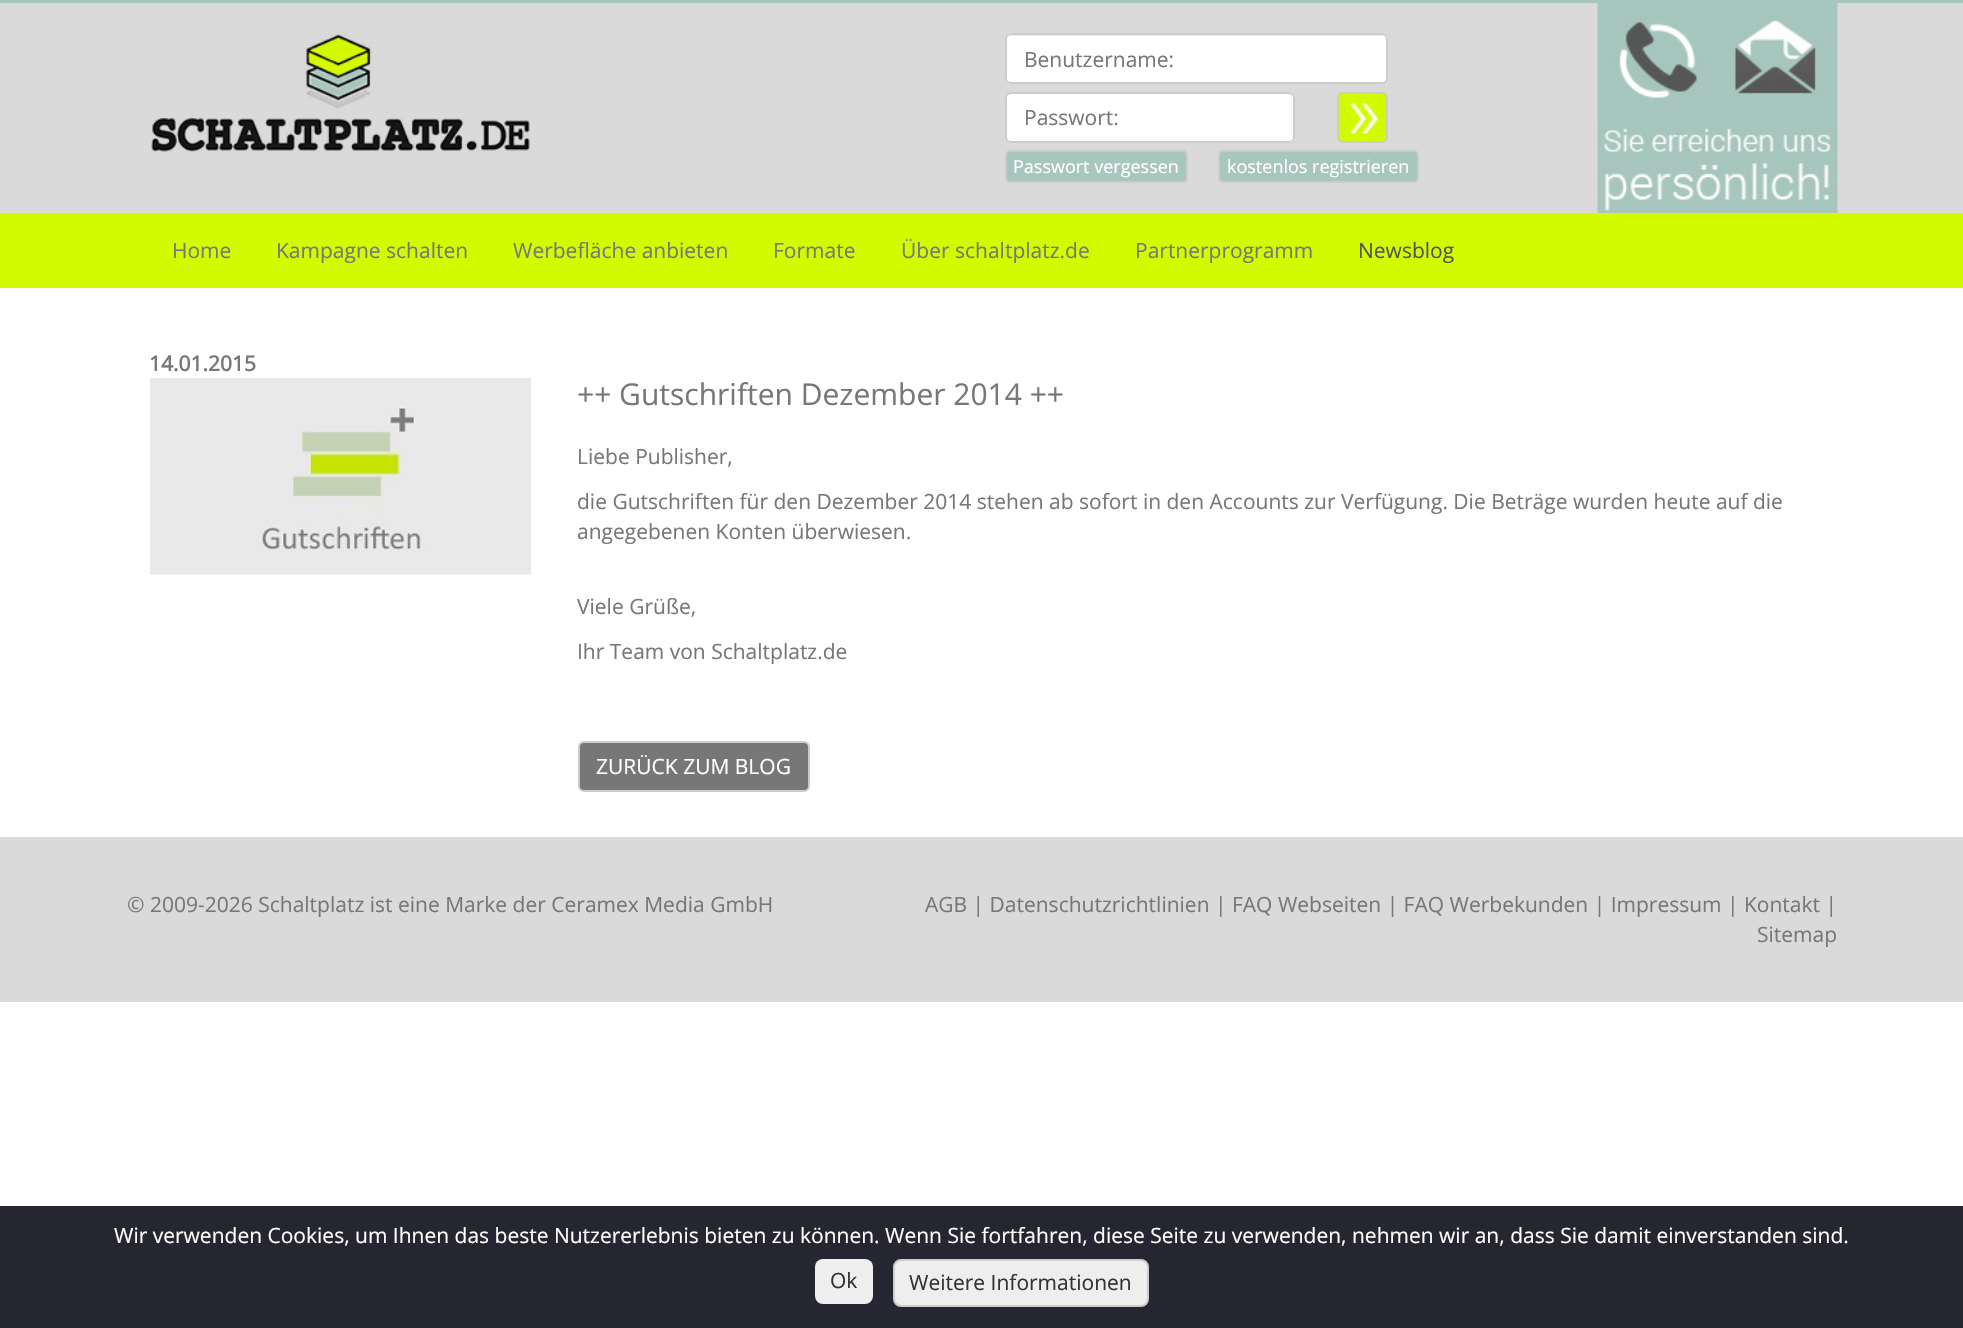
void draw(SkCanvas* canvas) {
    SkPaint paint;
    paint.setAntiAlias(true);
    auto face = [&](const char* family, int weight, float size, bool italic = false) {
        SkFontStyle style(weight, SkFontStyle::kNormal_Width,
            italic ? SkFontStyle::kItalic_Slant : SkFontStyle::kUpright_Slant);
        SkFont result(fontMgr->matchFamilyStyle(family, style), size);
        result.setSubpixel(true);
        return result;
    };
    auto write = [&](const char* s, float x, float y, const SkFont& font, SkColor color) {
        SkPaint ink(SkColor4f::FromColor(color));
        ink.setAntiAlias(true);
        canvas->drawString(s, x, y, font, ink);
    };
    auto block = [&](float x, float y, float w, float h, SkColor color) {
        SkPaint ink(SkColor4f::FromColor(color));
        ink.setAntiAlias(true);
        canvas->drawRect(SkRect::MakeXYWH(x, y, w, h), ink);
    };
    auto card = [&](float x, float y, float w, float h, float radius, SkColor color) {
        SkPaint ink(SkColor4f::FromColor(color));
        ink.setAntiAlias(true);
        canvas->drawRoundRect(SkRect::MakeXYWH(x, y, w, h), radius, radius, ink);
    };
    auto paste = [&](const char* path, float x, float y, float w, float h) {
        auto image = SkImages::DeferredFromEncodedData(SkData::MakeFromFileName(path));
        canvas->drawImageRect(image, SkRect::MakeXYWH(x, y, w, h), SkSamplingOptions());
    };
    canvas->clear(SK_ColorWHITE);
    block(0, 3, 1963, 210, SkColorSetRGB(218, 218, 218));
    block(0, 0, 1963, 3, SkColorSetRGB(167, 198, 190));
    paste("pic1.png", 151, 33, 379, 119);
    card(1005, 33, 383, 51, 6, SK_ColorWHITE);
    paint.setColor(SkColorSetRGB(236, 236, 236));
    canvas->drawPath(SkPathBuilder().moveTo(1011, 36).lineTo(1382, 36).cubicTo(1384, 36, 1386, 38, 1386, 40).cubicTo(1386, 37, 1384, 35, 1381, 35).lineTo(1012, 35).cubicTo(1010, 35, 1009, 36, 1008, 37).close().detach(), paint);
    paint.setStyle(SkPaint::kStroke_Style);
    paint.setStrokeWidth(2);
    paint.setColor(SkColorSetRGB(204, 204, 204));
    canvas->drawRoundRect(SkRect::MakeXYWH(1006, 34, 381, 49), 5, 5, paint);
    auto kFont1 = face("Open Sans", 400, 21);
    write("Benutzername:", 1024, 67, kFont1, SkColorSetRGB(119, 119, 119));
    card(1005, 92, 290, 51, 6, SK_ColorWHITE);
    paint.setStyle(SkPaint::kFill_Style);
    paint.setColor(SkColorSetRGB(236, 236, 236));
    canvas->drawPath(SkPathBuilder().moveTo(1011, 94).lineTo(1288, 94).cubicTo(1291, 94, 1293, 97, 1293, 99).lineTo(1293, 98).cubicTo(1293, 95, 1291, 93, 1288, 93).lineTo(1012, 93).cubicTo(1010, 93, 1008, 94, 1007, 96).cubicTo(1008, 95, 1010, 94, 1011, 94).close().detach(), paint);
    paint.setStyle(SkPaint::kStroke_Style);
    paint.setColor(SkColorSetRGB(204, 204, 204));
    canvas->drawRoundRect(SkRect::MakeXYWH(1006, 93, 288, 49), 5, 5, paint);
    write("Passwort:", 1024, 125, kFont1, SkColorSetRGB(119, 119, 119));
    paste("pic2.png", 1336, 91, 52, 52);
    canvas->drawRoundRect(SkRect::MakeXYWH(1338, 93, 49, 49), 5, 5, paint);
    paint.setStyle(SkPaint::kFill_Style);
    paint.setColor(SkColorSetRGB(167, 198, 190));
    canvas->drawRoundRect(SkRect::MakeXYWH(1006, 151, 181, 31), 4, 4, paint);
    paint.setStyle(SkPaint::kStroke_Style);
    paint.setColor(SkColorSetRGB(204, 204, 204));
    canvas->drawRoundRect(SkRect::MakeXYWH(1006, 151, 181, 31), 4, 4, paint);
    auto kFont2 = face("Open Sans", 400, 18);
    write("Passwort vergessen", 1013, 173, kFont2, SK_ColorWHITE);
    paint.setStyle(SkPaint::kFill_Style);
    paint.setColor(SkColorSetRGB(167, 198, 190));
    canvas->drawRoundRect(SkRect::MakeXYWH(1219, 151, 199, 31), 4, 4, paint);
    paint.setStyle(SkPaint::kStroke_Style);
    paint.setColor(SkColorSetRGB(204, 204, 204));
    canvas->drawRoundRect(SkRect::MakeXYWH(1219, 151, 199, 31), 4, 4, paint);
    write("kostenlos registrieren", 1227, 173, kFont2, SK_ColorWHITE);
    paste("pic3.png", 1597, 3, 241, 105);
    paste("pic4.png", 1597, 108, 241, 105);
    block(0, 213, 1963, 75, SkColorSetRGB(210, 251, 0));
    write("Home", 172, 258, kFont1, SkColorSetRGB(119, 119, 119));
    write("Kampagne schalten", 276, 258, kFont1, SkColorSetRGB(119, 119, 119));
    write("Werbefläche anbieten", 513, 258, kFont1, SkColorSetRGB(119, 119, 119));
    write("Formate", 773, 258, kFont1, SkColorSetRGB(119, 119, 119));
    write("Über schaltplatz.de", 901, 258, kFont1, SkColorSetRGB(119, 119, 119));
    write("Partnerprogramm", 1135, 258, kFont1, SkColorSetRGB(119, 119, 119));
    write("Newsblog", 1358, 258, kFont1, SkColorSetRGB(85, 85, 85));
    auto kFont3 = face("Open Sans", 700, 21);
    write("14.01.2015", 149, 371, kFont3, SkColorSetRGB(119, 119, 119));
    paste("pic5.png", 150, 378, 381, 197);
    auto kFont4 = face("Open Sans", 400, 30);
    write("++ Gutschriften Dezember 2014 ++", 577, 405, kFont4, SkColorSetRGB(119, 119, 119));
    write("Liebe Publisher,", 577, 464, kFont1, SkColorSetRGB(119, 119, 119));
    write("die Gutschriften für den Dezember 2014 stehen ab sofort in den Accounts zur Verfügung. Die Beträge wurden heute auf die", 577, 509, kFont1, SkColorSetRGB(119, 119, 119));
    write("angegebenen Konten überwiesen.", 577, 539, kFont1, SkColorSetRGB(119, 119, 119));
    write("Viele Grüße,", 577, 614, kFont1, SkColorSetRGB(119, 119, 119));
    write("Ihr Team von Schaltplatz.de", 577, 659, kFont1, SkColorSetRGB(119, 119, 119));
    paint.setStyle(SkPaint::kFill_Style);
    paint.setColor(SkColorSetRGB(119, 119, 119));
    canvas->drawRoundRect(SkRect::MakeXYWH(579, 742, 230, 49), 5, 5, paint);
    paint.setStyle(SkPaint::kStroke_Style);
    paint.setColor(SkColorSetRGB(204, 204, 204));
    canvas->drawRoundRect(SkRect::MakeXYWH(579, 742, 230, 49), 5, 5, paint);
    write("ZURÜCK ZUM BLOG", 596, 774, kFont1, SK_ColorWHITE);
    block(0, 837, 1963, 165, SkColorSetRGB(218, 218, 218));
    write("© 2009-2026 Schaltplatz ist eine Marke der Ceramex Media GmbH", 127, 912, kFont1, SkColorSetRGB(119, 119, 119));
    write("AGB | Datenschutzrichtlinien | FAQ Webseiten | FAQ Werbekunden | Impressum | Kontakt |", 925, 912, kFont1, SkColorSetRGB(119, 119, 119));
    write("Sitemap", 1757, 942, kFont1, SkColorSetRGB(119, 119, 119));
    block(0, 1206, 1963, 122, SkColorSetRGB(37, 38, 49));
    write("Wir verwenden Cookies, um Ihnen das beste Nutzererlebnis bieten zu können. Wenn Sie fortfahren, diese Seite zu verwenden, nehmen wir an, dass Sie damit einverstanden sind.", 114, 1243, kFont1, SK_ColorWHITE);
    card(815, 1259, 58, 45, 8, SkColorSetRGB(238, 238, 238));
    write("Ok", 830, 1288, kFont1, SkColorSetRGB(51, 51, 51));
    paint.setStyle(SkPaint::kFill_Style);
    paint.setColor(SkColorSetRGB(238, 238, 238));
    canvas->drawRoundRect(SkRect::MakeXYWH(894, 1260, 254, 46), 7, 7, paint);
    paint.setStyle(SkPaint::kStroke_Style);
    paint.setColor(SkColorSetRGB(204, 204, 204));
    canvas->drawRoundRect(SkRect::MakeXYWH(894, 1260, 254, 46), 7, 7, paint);
    write("Weitere Informationen", 909, 1290, kFont1, SkColorSetRGB(51, 51, 51));
}
